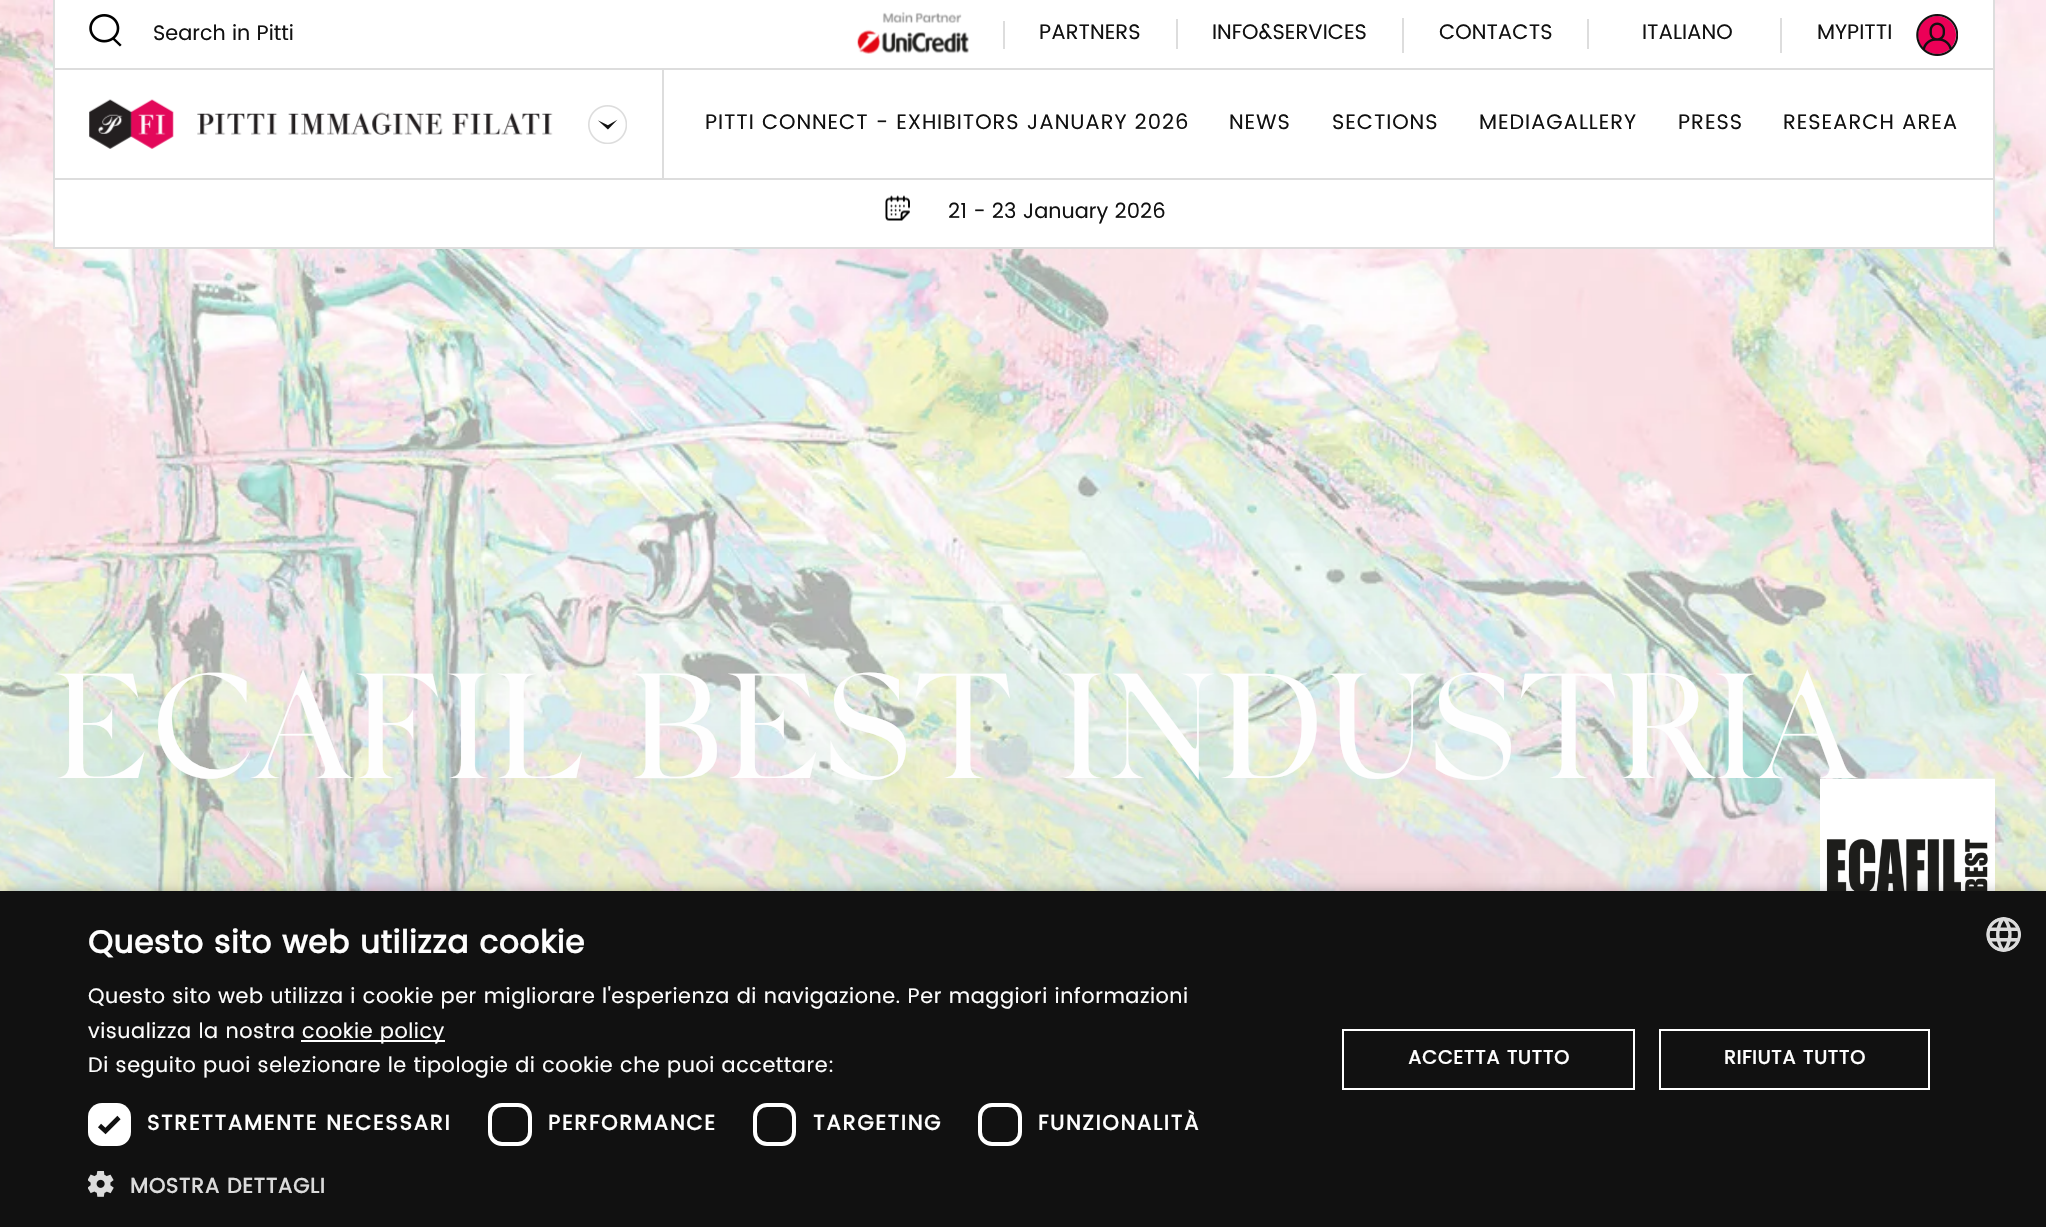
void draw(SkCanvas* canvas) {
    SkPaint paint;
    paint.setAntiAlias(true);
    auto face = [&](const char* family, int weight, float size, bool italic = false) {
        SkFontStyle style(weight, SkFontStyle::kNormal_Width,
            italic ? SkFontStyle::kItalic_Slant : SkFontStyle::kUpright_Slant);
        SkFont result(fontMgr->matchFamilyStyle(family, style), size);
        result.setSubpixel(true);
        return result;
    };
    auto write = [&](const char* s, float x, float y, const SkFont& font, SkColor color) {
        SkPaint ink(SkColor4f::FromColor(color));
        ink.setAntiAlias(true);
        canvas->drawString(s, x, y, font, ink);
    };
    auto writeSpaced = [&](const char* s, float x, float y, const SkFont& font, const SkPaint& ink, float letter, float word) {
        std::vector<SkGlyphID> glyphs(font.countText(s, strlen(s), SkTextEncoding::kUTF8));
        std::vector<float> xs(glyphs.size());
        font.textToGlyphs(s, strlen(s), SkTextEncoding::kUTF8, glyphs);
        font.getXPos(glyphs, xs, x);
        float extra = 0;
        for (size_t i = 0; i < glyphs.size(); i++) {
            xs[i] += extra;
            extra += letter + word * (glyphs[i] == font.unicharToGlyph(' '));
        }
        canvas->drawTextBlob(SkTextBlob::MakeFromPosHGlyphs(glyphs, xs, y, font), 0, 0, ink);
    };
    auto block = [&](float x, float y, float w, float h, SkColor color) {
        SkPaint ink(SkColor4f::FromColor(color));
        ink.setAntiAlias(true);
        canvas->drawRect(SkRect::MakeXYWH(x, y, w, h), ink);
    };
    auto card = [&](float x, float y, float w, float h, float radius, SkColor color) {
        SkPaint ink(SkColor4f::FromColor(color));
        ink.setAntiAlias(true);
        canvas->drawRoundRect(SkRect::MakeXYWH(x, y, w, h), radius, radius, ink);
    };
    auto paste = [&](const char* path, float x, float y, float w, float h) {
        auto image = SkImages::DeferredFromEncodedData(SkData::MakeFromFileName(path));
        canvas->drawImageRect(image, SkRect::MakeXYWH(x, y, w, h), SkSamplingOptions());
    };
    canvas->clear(SK_ColorWHITE);
    paste("pic7.png", 0, 0, 2046, 891);
    block(55, 0, 1938, 68, SK_ColorWHITE);
    block(1993, 0, 2, 68, SkColorSetRGB(221, 221, 221));
    block(53, 0, 2, 68, SkColorSetRGB(221, 221, 221));
    paste("pic1.png", 89, 14, 33, 33);
    auto kFont1 = face("Poppins", 400, 21);
    write("Search in Pitti", 153, 40, kFont1, SkColorSetRGB(17, 17, 17));
    paste("pic2.png", 857, 11, 112, 43);
    block(1003, 21, 2, 28, SkColorSetRGB(221, 221, 221));
    block(1176, 19, 2, 30, SkColorSetRGB(221, 221, 221));
    write("PARTNERS", 1039, 39, kFont1, SkColorSetRGB(17, 17, 17));
    block(1402, 18, 2, 35, SkColorSetRGB(221, 221, 221));
    write("INFO&SERVICES", 1212, 39, kFont1, SkColorSetRGB(17, 17, 17));
    block(1587, 19, 2, 30, SkColorSetRGB(221, 221, 221));
    write("CONTACTS", 1439, 39, kFont1, SkColorSetRGB(17, 17, 17));
    block(1780, 18, 2, 35, SkColorSetRGB(221, 221, 221));
    write("ITALIANO", 1642, 39, kFont1, SkColorSetRGB(17, 17, 17));
    write("MYPITTI", 1817, 39, kFont1, SkColorSetRGB(17, 17, 17));
    paste("pic3.png", 1916, 14, 42, 42);
    paint.setColor(SK_ColorWHITE);
    canvas->drawRect(SkRect::MakeXYWH(54, 69, 1940, 110), paint);
    paint.setStyle(SkPaint::kStroke_Style);
    paint.setStrokeWidth(2);
    paint.setColor(SkColorSetRGB(221, 221, 221));
    canvas->drawRect(SkRect::MakeXYWH(54, 69, 1940, 110), paint);
    block(662, 70, 2, 109, SkColorSetRGB(221, 221, 221));
    paste("pic4.png", 89, 99, 464, 50);
    paste("pic5.png", 588, 105, 39, 39);
    paint.setStyle(SkPaint::kFill_Style);
    paint.setColor(SkColorSetRGB(17, 17, 17));
    writeSpaced("PITTI CONNECT - EXHIBITORS JANUARY 2026", 705, 129, kFont1, paint, 0.9f, 0);
    writeSpaced("NEWS", 1229, 129, kFont1, paint, 0.9f, 0);
    writeSpaced("SECTIONS", 1332, 129, kFont1, paint, 0.9f, 0);
    writeSpaced("MEDIAGALLERY", 1479, 129, kFont1, paint, 0.9f, 0);
    writeSpaced("PRESS", 1678, 129, kFont1, paint, 0.9f, 0);
    writeSpaced("RESEARCH AREA", 1783, 129, kFont1, paint, 0.9f, 0);
    block(55, 180, 1938, 67, SK_ColorWHITE);
    block(1993, 180, 2, 69, SkColorSetRGB(221, 221, 221));
    block(53, 247, 1942, 2, SkColorSetRGB(221, 221, 221));
    block(53, 180, 2, 69, SkColorSetRGB(221, 221, 221));
    paste("pic6.png", 885, 195, 25, 26);
    write("21 - 23 January 2026", 948, 218, kFont1, SkColorSetRGB(17, 17, 17));
    auto kFont2 = face("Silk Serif", 400, 148.75f);
    paint.setColor(SkColorSetRGB(254, 254, 254));
    writeSpaced("ECAFIL BEST INDUSTRIA", 53, 778, kFont2, paint, 1.25f, 0);
    paste("pic8.png", 1820, 778, 175, 113);
    paint.setColor(SkColorSetARGB(89, 0, 0, 0));
    paint.setMaskFilter(SkMaskFilter::MakeBlur(kNormal_SkBlurStyle, 7));
    canvas->drawRect(SkRect::MakeXYWH(2, 894, 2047, 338), paint);
    paint.setMaskFilter(nullptr);
    block(0, 891, 2046, 336, SkColorSetRGB(17, 17, 17));
    auto kFont3 = face("Poppins", 700, 31.5f);
    paint.setColor(SkColorSetRGB(254, 254, 254));
    writeSpaced("Questo sito web utilizza cookie", 88, 953, kFont3, paint, 0.7f, 0);
    writeSpaced("Questo sito web utilizza i cookie per migliorare l'esperienza di navigazione. Per maggiori informazioni", 88, 1003, kFont1, paint, 0.53f, 0);
    writeSpaced("visualizza la nostra", 88, 1038, kFont1, paint, 0.53f, 0);
    block(301, 1040, 144, 2, SK_ColorWHITE);
    writeSpaced("cookie policy", 302, 1038, kFont1, paint, 0.53f, 0);
    writeSpaced("Di seguito puoi selezionare le tipologie di cookie che puoi accettare:", 88, 1072, kFont1, paint, 0.53f, 0);
    card(88, 1103, 43, 43, 14, SK_ColorWHITE);
    paint.setStyle(SkPaint::kStroke_Style);
    paint.setStrokeWidth(4.6f);
    paint.setColor(SkColorSetRGB(17, 17, 17));
    canvas->drawPath(SkPathBuilder().moveTo(99.5f, 1125.5f).lineTo(105.5f, 1131).lineTo(119, 1117.5f).detach(), paint);
    auto kFont4 = face("Poppins", 700, 21);
    paint.setStyle(SkPaint::kFill_Style);
    paint.setColor(SkColorSetRGB(254, 254, 254));
    writeSpaced("STRETTAMENTE NECESSARI", 147, 1130, kFont4, paint, 1.75f, 0);
    paint.setStyle(SkPaint::kStroke_Style);
    paint.setStrokeWidth(4);
    paint.setColor(SK_ColorWHITE);
    canvas->drawRoundRect(SkRect::MakeXYWH(490, 1105, 40, 39), 12, 12, paint);
    paint.setStyle(SkPaint::kFill_Style);
    paint.setColor(SkColorSetRGB(254, 254, 254));
    writeSpaced("PERFORMANCE", 548, 1130, kFont4, paint, 1.75f, 0);
    paint.setStyle(SkPaint::kStroke_Style);
    paint.setColor(SK_ColorWHITE);
    canvas->drawRoundRect(SkRect::MakeXYWH(755, 1105, 39, 39), 12, 12, paint);
    paint.setStyle(SkPaint::kFill_Style);
    paint.setColor(SkColorSetRGB(254, 254, 254));
    writeSpaced("TARGETING", 813, 1130, kFont4, paint, 1.75f, 0);
    paint.setStyle(SkPaint::kStroke_Style);
    paint.setColor(SK_ColorWHITE);
    canvas->drawRoundRect(SkRect::MakeXYWH(980, 1105, 40, 39), 12, 12, paint);
    paint.setStyle(SkPaint::kFill_Style);
    paint.setColor(SkColorSetRGB(254, 254, 254));
    writeSpaced("FUNZIONALITÀ", 1038, 1130, kFont4, paint, 1.75f, 0);
    paste("pic9.png", 88, 1171, 26, 26);
    paint.setColor(SkColorSetRGB(219, 219, 219));
    writeSpaced("MOSTRA DETTAGLI", 130, 1193, kFont4, paint, 0.7f, 0);
    paint.setStyle(SkPaint::kStroke_Style);
    paint.setStrokeWidth(2);
    paint.setColor(SK_ColorWHITE);
    canvas->drawRect(SkRect::MakeXYWH(1343, 1030, 291, 59), paint);
    auto kFont5 = face("Poppins", 700, 19.25f);
    paint.setStyle(SkPaint::kFill_Style);
    paint.setColor(SkColorSetRGB(254, 254, 254));
    writeSpaced("ACCETTA TUTTO", 1408, 1064, kFont5, paint, 0.7f, 0);
    paint.setStyle(SkPaint::kStroke_Style);
    paint.setColor(SK_ColorWHITE);
    canvas->drawRect(SkRect::MakeXYWH(1660, 1030, 269, 59), paint);
    paint.setStyle(SkPaint::kFill_Style);
    paint.setColor(SkColorSetRGB(254, 254, 254));
    writeSpaced("RIFIUTA TUTTO", 1724, 1064, kFont5, paint, 0.7f, 0);
    paste("pic10.png", 1986, 917, 35, 35);
}
